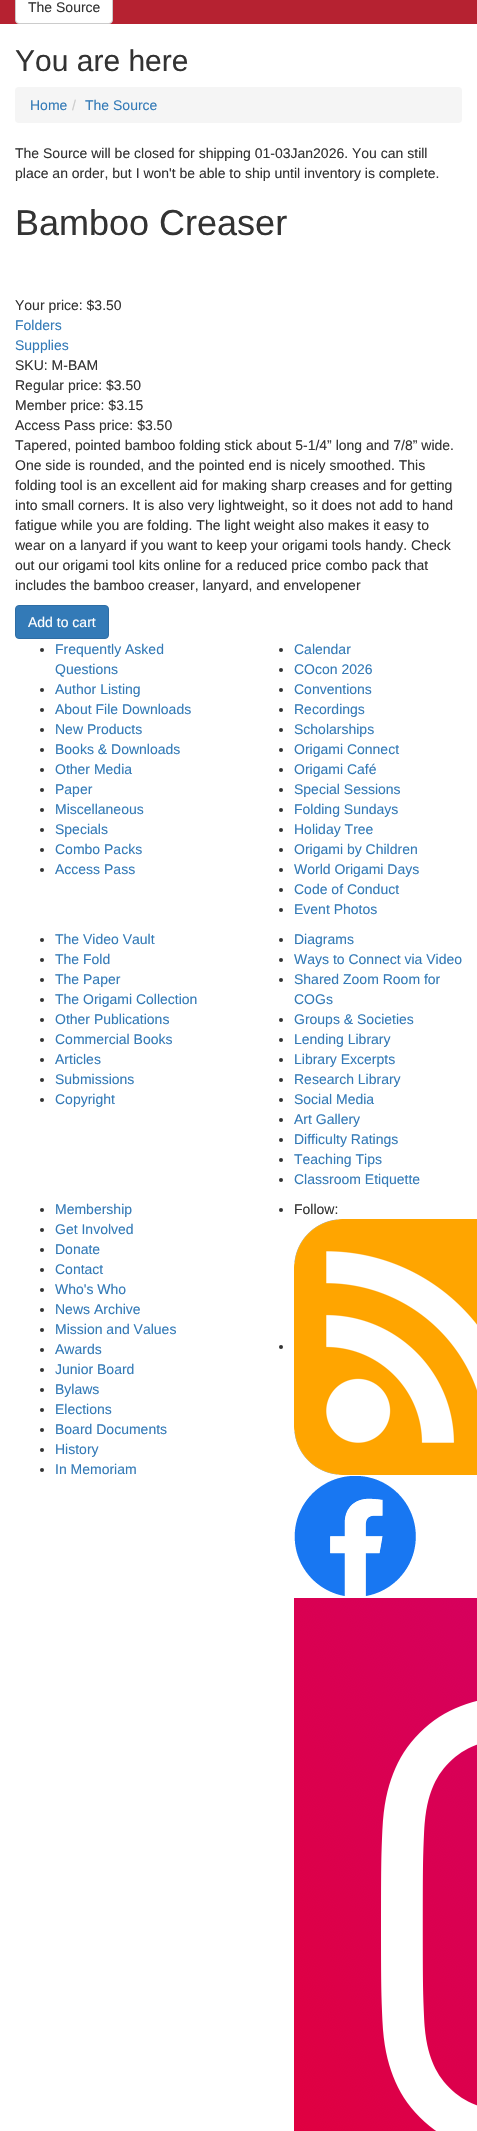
void draw(SkCanvas* canvas) {
    SkPaint paint;
    paint.setAntiAlias(true);
    auto face = [&](const char* family, int weight, float size, bool italic = false) {
        SkFontStyle style(weight, SkFontStyle::kNormal_Width,
            italic ? SkFontStyle::kItalic_Slant : SkFontStyle::kUpright_Slant);
        SkFont result(fontMgr->matchFamilyStyle(family, style), size);
        result.setSubpixel(true);
        return result;
    };
    auto write = [&](const char* s, float x, float y, const SkFont& font, SkColor color) {
        SkPaint ink(SkColor4f::FromColor(color));
        ink.setAntiAlias(true);
        canvas->drawString(s, x, y, font, ink);
    };
    auto block = [&](float x, float y, float w, float h, SkColor color) {
        SkPaint ink(SkColor4f::FromColor(color));
        ink.setAntiAlias(true);
        canvas->drawRect(SkRect::MakeXYWH(x, y, w, h), ink);
    };
    auto card = [&](float x, float y, float w, float h, float radius, SkColor color) {
        SkPaint ink(SkColor4f::FromColor(color));
        ink.setAntiAlias(true);
        canvas->drawRoundRect(SkRect::MakeXYWH(x, y, w, h), radius, radius, ink);
    };
    auto paste = [&](const char* path, float x, float y, float w, float h) {
        auto image = SkImages::DeferredFromEncodedData(SkData::MakeFromFileName(path));
        canvas->drawImageRect(image, SkRect::MakeXYWH(x, y, w, h), SkSamplingOptions());
    };
    canvas->clear(SK_ColorWHITE);
    block(0, 0, 477, 24, SkColorSetRGB(182, 34, 49));
    paint.setColor(SK_ColorWHITE);
    canvas->drawRoundRect(SkRect::MakeXYWH(15.5f, -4.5f, 97, 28), 3.5f, 3.5f, paint);
    paint.setStyle(SkPaint::kStroke_Style);
    paint.setStrokeWidth(1);
    paint.setColor(SkColorSetRGB(204, 204, 204));
    canvas->drawRoundRect(SkRect::MakeXYWH(15.5f, -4.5f, 97, 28), 3.5f, 3.5f, paint);
    auto kFont1 = face("Liberation Sans", 400, 14);
    write("The Source", 28, 12, kFont1, SkColorSetRGB(51, 51, 51));
    auto kFont2 = face("Liberation Sans", 400, 30);
    write("You are here", 15, 71, kFont2, SkColorSetRGB(51, 51, 51));
    card(15, 87, 447, 36, 4, SkColorSetRGB(245, 245, 245));
    write("Home", 30, 110, kFont1, SkColorSetRGB(51, 122, 183));
    write("/", 72, 110, kFont1, SkColorSetRGB(204, 204, 204));
    write("The Source", 85, 110, kFont1, SkColorSetRGB(51, 122, 183));
    write("The Source will be closed for shipping 01-03Jan2026. You can still", 15, 158, kFont1, SkColorSetRGB(51, 51, 51));
    write("place an order, but I won't be able to ship until inventory is complete.", 15, 178, kFont1, SkColorSetRGB(51, 51, 51));
    auto kFont3 = face("Liberation Sans", 400, 36);
    write("Bamboo Creaser", 15, 235, kFont3, SkColorSetRGB(51, 51, 51));
    write("Your price: $3.50", 15, 310, kFont1, SkColorSetRGB(51, 51, 51));
    write("Folders", 15, 330, kFont1, SkColorSetRGB(51, 122, 183));
    write("Supplies", 15, 350, kFont1, SkColorSetRGB(51, 122, 183));
    write("SKU: M-BAM", 15, 370, kFont1, SkColorSetRGB(51, 51, 51));
    write("Regular price: $3.50", 15, 390, kFont1, SkColorSetRGB(51, 51, 51));
    write("Member price: $3.15", 15, 410, kFont1, SkColorSetRGB(51, 51, 51));
    write("Access Pass price: $3.50", 15, 430, kFont1, SkColorSetRGB(51, 51, 51));
    write("Tapered, pointed bamboo folding stick about 5-1/4” long and 7/8” wide.", 15, 450, kFont1, SkColorSetRGB(51, 51, 51));
    write("One side is rounded, and the pointed end is nicely smoothed. This", 15, 470, kFont1, SkColorSetRGB(51, 51, 51));
    write("folding tool is an excellent aid for making sharp creases and for getting", 15, 490, kFont1, SkColorSetRGB(51, 51, 51));
    write("into small corners. It is also very lightweight, so it does not add to hand", 15, 510, kFont1, SkColorSetRGB(51, 51, 51));
    write("fatigue while you are folding. The light weight also makes it easy to", 15, 530, kFont1, SkColorSetRGB(51, 51, 51));
    write("wear on a lanyard if you want to keep your origami tools handy. Check", 15, 550, kFont1, SkColorSetRGB(51, 51, 51));
    write("out our origami tool kits online for a reduced price combo pack that", 15, 570, kFont1, SkColorSetRGB(51, 51, 51));
    write("includes the bamboo creaser, lanyard, and envelopener", 15, 590, kFont1, SkColorSetRGB(51, 51, 51));
    paint.setStyle(SkPaint::kFill_Style);
    paint.setColor(SkColorSetRGB(51, 122, 183));
    canvas->drawRoundRect(SkRect::MakeXYWH(15.5f, 605.5f, 93, 33), 3.5f, 3.5f, paint);
    paint.setStyle(SkPaint::kStroke_Style);
    paint.setColor(SkColorSetRGB(46, 109, 164));
    canvas->drawRoundRect(SkRect::MakeXYWH(15.5f, 605.5f, 93, 33), 3.5f, 3.5f, paint);
    write("Add to cart", 28, 627, kFont1, SK_ColorWHITE);
    paint.setStyle(SkPaint::kFill_Style);
    paint.setColor(SkColorSetRGB(51, 51, 51));
    canvas->drawCircle(42, 650, 2, paint);
    write("Frequently Asked", 55, 654, kFont1, SkColorSetRGB(51, 122, 183));
    write("Questions", 55, 674, kFont1, SkColorSetRGB(51, 122, 183));
    canvas->drawCircle(42, 690, 2, paint);
    write("Author Listing", 55, 694, kFont1, SkColorSetRGB(51, 122, 183));
    canvas->drawCircle(42, 710, 2, paint);
    write("About File Downloads", 55, 714, kFont1, SkColorSetRGB(51, 122, 183));
    canvas->drawCircle(42, 730, 2, paint);
    write("New Products", 55, 734, kFont1, SkColorSetRGB(51, 122, 183));
    canvas->drawCircle(42, 750, 2, paint);
    write("Books & Downloads", 55, 754, kFont1, SkColorSetRGB(51, 122, 183));
    canvas->drawCircle(42, 770, 2, paint);
    write("Other Media", 55, 774, kFont1, SkColorSetRGB(51, 122, 183));
    canvas->drawCircle(42, 790, 2, paint);
    write("Paper", 55, 794, kFont1, SkColorSetRGB(51, 122, 183));
    canvas->drawCircle(42, 810, 2, paint);
    write("Miscellaneous", 55, 814, kFont1, SkColorSetRGB(51, 122, 183));
    canvas->drawCircle(42, 830, 2, paint);
    write("Specials", 55, 834, kFont1, SkColorSetRGB(51, 122, 183));
    canvas->drawCircle(42, 850, 2, paint);
    write("Combo Packs", 55, 854, kFont1, SkColorSetRGB(51, 122, 183));
    canvas->drawCircle(42, 870, 2, paint);
    write("Access Pass", 55, 874, kFont1, SkColorSetRGB(51, 122, 183));
    canvas->drawCircle(281, 650, 2, paint);
    write("Calendar", 294, 654, kFont1, SkColorSetRGB(51, 122, 183));
    canvas->drawCircle(281, 670, 2, paint);
    write("COcon 2026", 294, 674, kFont1, SkColorSetRGB(51, 122, 183));
    canvas->drawCircle(281, 690, 2, paint);
    write("Conventions", 294, 694, kFont1, SkColorSetRGB(51, 122, 183));
    canvas->drawCircle(281, 710, 2, paint);
    write("Recordings", 294, 714, kFont1, SkColorSetRGB(51, 122, 183));
    canvas->drawCircle(281, 730, 2, paint);
    write("Scholarships", 294, 734, kFont1, SkColorSetRGB(51, 122, 183));
    canvas->drawCircle(281, 750, 2, paint);
    write("Origami Connect", 294, 754, kFont1, SkColorSetRGB(51, 122, 183));
    canvas->drawCircle(281, 770, 2, paint);
    write("Origami Café", 294, 774, kFont1, SkColorSetRGB(51, 122, 183));
    canvas->drawCircle(281, 790, 2, paint);
    write("Special Sessions", 294, 794, kFont1, SkColorSetRGB(51, 122, 183));
    canvas->drawCircle(281, 810, 2, paint);
    write("Folding Sundays", 294, 814, kFont1, SkColorSetRGB(51, 122, 183));
    canvas->drawCircle(281, 830, 2, paint);
    write("Holiday Tree", 294, 834, kFont1, SkColorSetRGB(51, 122, 183));
    canvas->drawCircle(281, 850, 2, paint);
    write("Origami by Children", 294, 854, kFont1, SkColorSetRGB(51, 122, 183));
    canvas->drawCircle(281, 870, 2, paint);
    write("World Origami Days", 294, 874, kFont1, SkColorSetRGB(51, 122, 183));
    canvas->drawCircle(281, 890, 2, paint);
    write("Code of Conduct", 294, 894, kFont1, SkColorSetRGB(51, 122, 183));
    canvas->drawCircle(281, 910, 2, paint);
    write("Event Photos", 294, 914, kFont1, SkColorSetRGB(51, 122, 183));
    canvas->drawCircle(42, 940, 2, paint);
    write("The Video Vault", 55, 944, kFont1, SkColorSetRGB(51, 122, 183));
    canvas->drawCircle(42, 960, 2, paint);
    write("The Fold", 55, 964, kFont1, SkColorSetRGB(51, 122, 183));
    canvas->drawCircle(42, 980, 2, paint);
    write("The Paper", 55, 984, kFont1, SkColorSetRGB(51, 122, 183));
    canvas->drawCircle(42, 1000, 2, paint);
    write("The Origami Collection", 55, 1004, kFont1, SkColorSetRGB(51, 122, 183));
    canvas->drawCircle(42, 1020, 2, paint);
    write("Other Publications", 55, 1024, kFont1, SkColorSetRGB(51, 122, 183));
    canvas->drawCircle(42, 1040, 2, paint);
    write("Commercial Books", 55, 1044, kFont1, SkColorSetRGB(51, 122, 183));
    canvas->drawCircle(42, 1060, 2, paint);
    write("Articles", 55, 1064, kFont1, SkColorSetRGB(51, 122, 183));
    canvas->drawCircle(42, 1080, 2, paint);
    write("Submissions", 55, 1084, kFont1, SkColorSetRGB(51, 122, 183));
    canvas->drawCircle(42, 1100, 2, paint);
    write("Copyright", 55, 1104, kFont1, SkColorSetRGB(51, 122, 183));
    canvas->drawCircle(281, 940, 2, paint);
    write("Diagrams", 294, 944, kFont1, SkColorSetRGB(51, 122, 183));
    canvas->drawCircle(281, 960, 2, paint);
    write("Ways to Connect via Video", 294, 964, kFont1, SkColorSetRGB(51, 122, 183));
    canvas->drawCircle(281, 980, 2, paint);
    write("Shared Zoom Room for", 294, 984, kFont1, SkColorSetRGB(51, 122, 183));
    write("COGs", 294, 1004, kFont1, SkColorSetRGB(51, 122, 183));
    canvas->drawCircle(281, 1020, 2, paint);
    write("Groups & Societies", 294, 1024, kFont1, SkColorSetRGB(51, 122, 183));
    canvas->drawCircle(281, 1040, 2, paint);
    write("Lending Library", 294, 1044, kFont1, SkColorSetRGB(51, 122, 183));
    canvas->drawCircle(281, 1060, 2, paint);
    write("Library Excerpts", 294, 1064, kFont1, SkColorSetRGB(51, 122, 183));
    canvas->drawCircle(281, 1080, 2, paint);
    write("Research Library", 294, 1084, kFont1, SkColorSetRGB(51, 122, 183));
    canvas->drawCircle(281, 1100, 2, paint);
    write("Social Media", 294, 1104, kFont1, SkColorSetRGB(51, 122, 183));
    canvas->drawCircle(281, 1120, 2, paint);
    write("Art Gallery", 294, 1124, kFont1, SkColorSetRGB(51, 122, 183));
    canvas->drawCircle(281, 1140, 2, paint);
    write("Difficulty Ratings", 294, 1144, kFont1, SkColorSetRGB(51, 122, 183));
    canvas->drawCircle(281, 1160, 2, paint);
    write("Teaching Tips", 294, 1164, kFont1, SkColorSetRGB(51, 122, 183));
    canvas->drawCircle(281, 1180, 2, paint);
    write("Classroom Etiquette", 294, 1184, kFont1, SkColorSetRGB(51, 122, 183));
    canvas->drawCircle(42, 1210, 2, paint);
    write("Membership", 55, 1214, kFont1, SkColorSetRGB(51, 122, 183));
    canvas->drawCircle(42, 1230, 2, paint);
    write("Get Involved", 55, 1234, kFont1, SkColorSetRGB(51, 122, 183));
    canvas->drawCircle(42, 1250, 2, paint);
    write("Donate", 55, 1254, kFont1, SkColorSetRGB(51, 122, 183));
    canvas->drawCircle(42, 1270, 2, paint);
    write("Contact", 55, 1274, kFont1, SkColorSetRGB(51, 122, 183));
    canvas->drawCircle(42, 1290, 2, paint);
    write("Who's Who", 55, 1294, kFont1, SkColorSetRGB(51, 122, 183));
    canvas->drawCircle(42, 1310, 2, paint);
    write("News Archive", 55, 1314, kFont1, SkColorSetRGB(51, 122, 183));
    canvas->drawCircle(42, 1330, 2, paint);
    write("Mission and Values", 55, 1334, kFont1, SkColorSetRGB(51, 122, 183));
    canvas->drawCircle(42, 1350, 2, paint);
    write("Awards", 55, 1354, kFont1, SkColorSetRGB(51, 122, 183));
    canvas->drawCircle(42, 1370, 2, paint);
    write("Junior Board", 55, 1374, kFont1, SkColorSetRGB(51, 122, 183));
    canvas->drawCircle(42, 1390, 2, paint);
    write("Bylaws", 55, 1394, kFont1, SkColorSetRGB(51, 122, 183));
    canvas->drawCircle(42, 1410, 2, paint);
    write("Elections", 55, 1414, kFont1, SkColorSetRGB(51, 122, 183));
    canvas->drawCircle(42, 1430, 2, paint);
    write("Board Documents", 55, 1434, kFont1, SkColorSetRGB(51, 122, 183));
    canvas->drawCircle(42, 1450, 2, paint);
    write("History", 55, 1454, kFont1, SkColorSetRGB(51, 122, 183));
    canvas->drawCircle(42, 1470, 2, paint);
    write("In Memoriam", 55, 1474, kFont1, SkColorSetRGB(51, 122, 183));
    canvas->drawCircle(281, 1210, 2, paint);
    write("Follow:", 294, 1214, kFont1, SkColorSetRGB(51, 51, 51));
    canvas->drawCircle(281, 1347, 2, paint);
    paste("pic1.png", 294, 1219, 183, 256);
    paste("pic2.png", 294, 1476, 122, 120);
    paste("pic3.png", 294, 1598, 183, 533);
}
